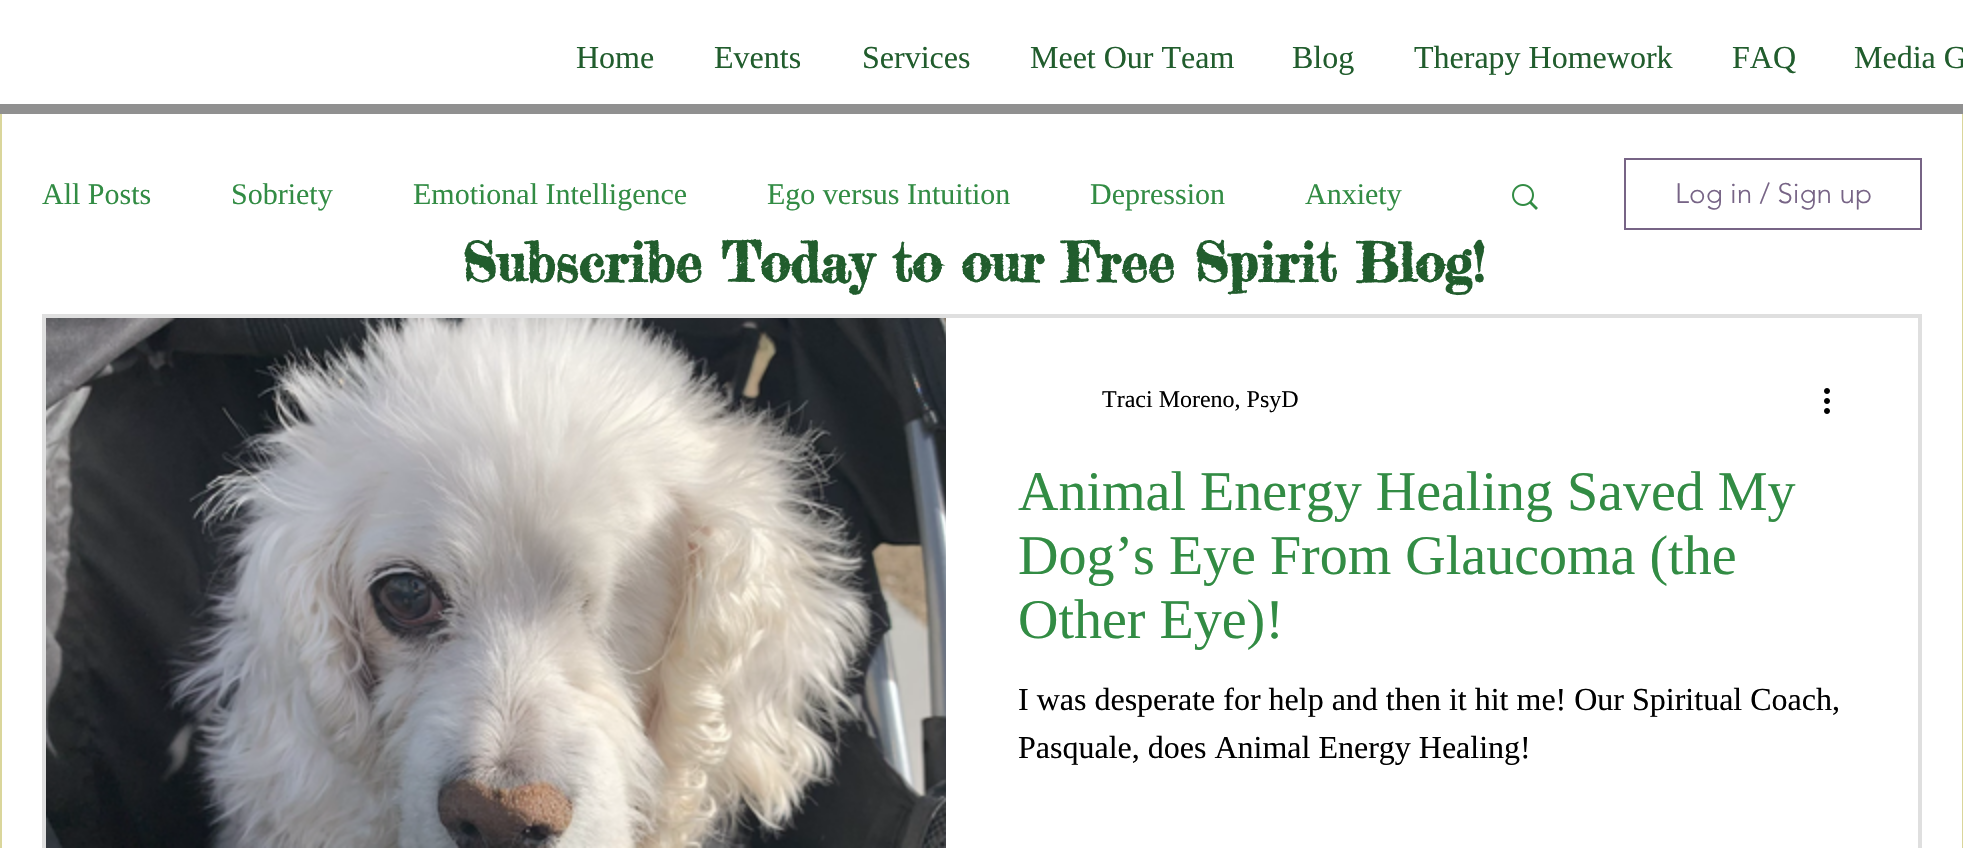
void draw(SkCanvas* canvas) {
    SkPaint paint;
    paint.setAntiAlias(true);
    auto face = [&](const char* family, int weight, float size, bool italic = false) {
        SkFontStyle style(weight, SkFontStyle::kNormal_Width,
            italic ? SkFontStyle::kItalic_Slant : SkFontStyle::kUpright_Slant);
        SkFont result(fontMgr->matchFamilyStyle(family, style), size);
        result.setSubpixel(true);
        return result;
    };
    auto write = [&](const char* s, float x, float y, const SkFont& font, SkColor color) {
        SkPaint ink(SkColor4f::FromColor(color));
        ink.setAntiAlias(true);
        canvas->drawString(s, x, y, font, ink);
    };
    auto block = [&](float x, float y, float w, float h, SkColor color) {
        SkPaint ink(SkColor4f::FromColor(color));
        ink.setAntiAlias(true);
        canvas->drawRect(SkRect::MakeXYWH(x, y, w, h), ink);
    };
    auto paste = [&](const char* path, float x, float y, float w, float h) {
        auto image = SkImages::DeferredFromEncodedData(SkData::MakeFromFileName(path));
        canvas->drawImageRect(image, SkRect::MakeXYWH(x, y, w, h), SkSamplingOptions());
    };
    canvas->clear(SkColorSetRGB(218, 214, 155));
    block(0, 0, 1963, 104, SK_ColorWHITE);
    block(0, 104, 1963, 10, SkColorSetRGB(144, 144, 144));
    auto kFont1 = face("Liberation Serif", 400, 32);
    write("Home", 576, 68, kFont1, SkColorSetRGB(33, 93, 45));
    write("Events", 714, 68, kFont1, SkColorSetRGB(33, 93, 45));
    write("Services", 862, 68, kFont1, SkColorSetRGB(33, 93, 45));
    write("Meet Our Team", 1030, 68, kFont1, SkColorSetRGB(33, 93, 45));
    write("Blog", 1292, 68, kFont1, SkColorSetRGB(33, 93, 45));
    write("Therapy Homework", 1414, 68, kFont1, SkColorSetRGB(33, 93, 45));
    write("FAQ", 1732, 68, kFont1, SkColorSetRGB(33, 93, 45));
    write("Media G", 1854, 68, kFont1, SkColorSetRGB(33, 93, 45));
    block(2, 114, 1960, 734, SK_ColorWHITE);
    auto kFont2 = face("Liberation Serif", 400, 30);
    write("All Posts", 42, 204, kFont2, SkColorSetRGB(50, 140, 68));
    write("Sobriety", 231, 204, kFont2, SkColorSetRGB(50, 140, 68));
    write("Emotional Intelligence", 413, 204, kFont2, SkColorSetRGB(50, 140, 68));
    write("Ego versus Intuition", 767, 204, kFont2, SkColorSetRGB(50, 140, 68));
    write("Depression", 1090, 204, kFont2, SkColorSetRGB(50, 140, 68));
    write("Anxiety", 1305, 204, kFont2, SkColorSetRGB(50, 140, 68));
    paste("pic1.png", 1512, 184, 26, 26);
    paint.setStyle(SkPaint::kStroke_Style);
    paint.setStrokeWidth(2);
    paint.setColor(SkColorSetRGB(119, 100, 134));
    canvas->drawRect(SkRect::MakeXYWH(1625, 159, 296, 70), paint);
    auto kFont3 = face("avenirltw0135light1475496", 300, 28);
    write("Log in / Sign up", 1675, 203, kFont3, SkColorSetRGB(119, 100, 134));
    paint.setStrokeWidth(4);
    paint.setColor(SkColorSetRGB(223, 223, 223));
    canvas->drawRect(SkRect::MakeXYWH(44, 316, 1876, 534), paint);
    paste("pic2.png", 46, 318, 900, 530);
    auto kFont4 = face("Liberation Serif", 400, 24);
    write("Traci Moreno, PsyD", 1102, 407, kFont4, SK_ColorBLACK);
    paste("pic3.png", 1824, 388, 6, 26);
    auto kFont5 = face("Liberation Serif", 400, 56);
    write("Animal Energy Healing Saved My", 1018, 510, kFont5, SkColorSetRGB(50, 140, 68));
    write("Dog’s Eye From Glaucoma (the", 1018, 574, kFont5, SkColorSetRGB(50, 140, 68));
    write("Other Eye)!", 1018, 638, kFont5, SkColorSetRGB(50, 140, 68));
    write("I was desperate for help and then it hit me! Our Spiritual Coach,", 1018, 710, kFont1, SK_ColorBLACK);
    write("Pasquale, does Animal Energy Healing!", 1018, 758, kFont1, SK_ColorBLACK);
    auto kFont6 = face("Fredericka the Great", 700, 54);
    write("Subscribe Today to our Free Spirit Blog!", 462, 282, kFont6, SkColorSetRGB(33, 93, 45));
}
